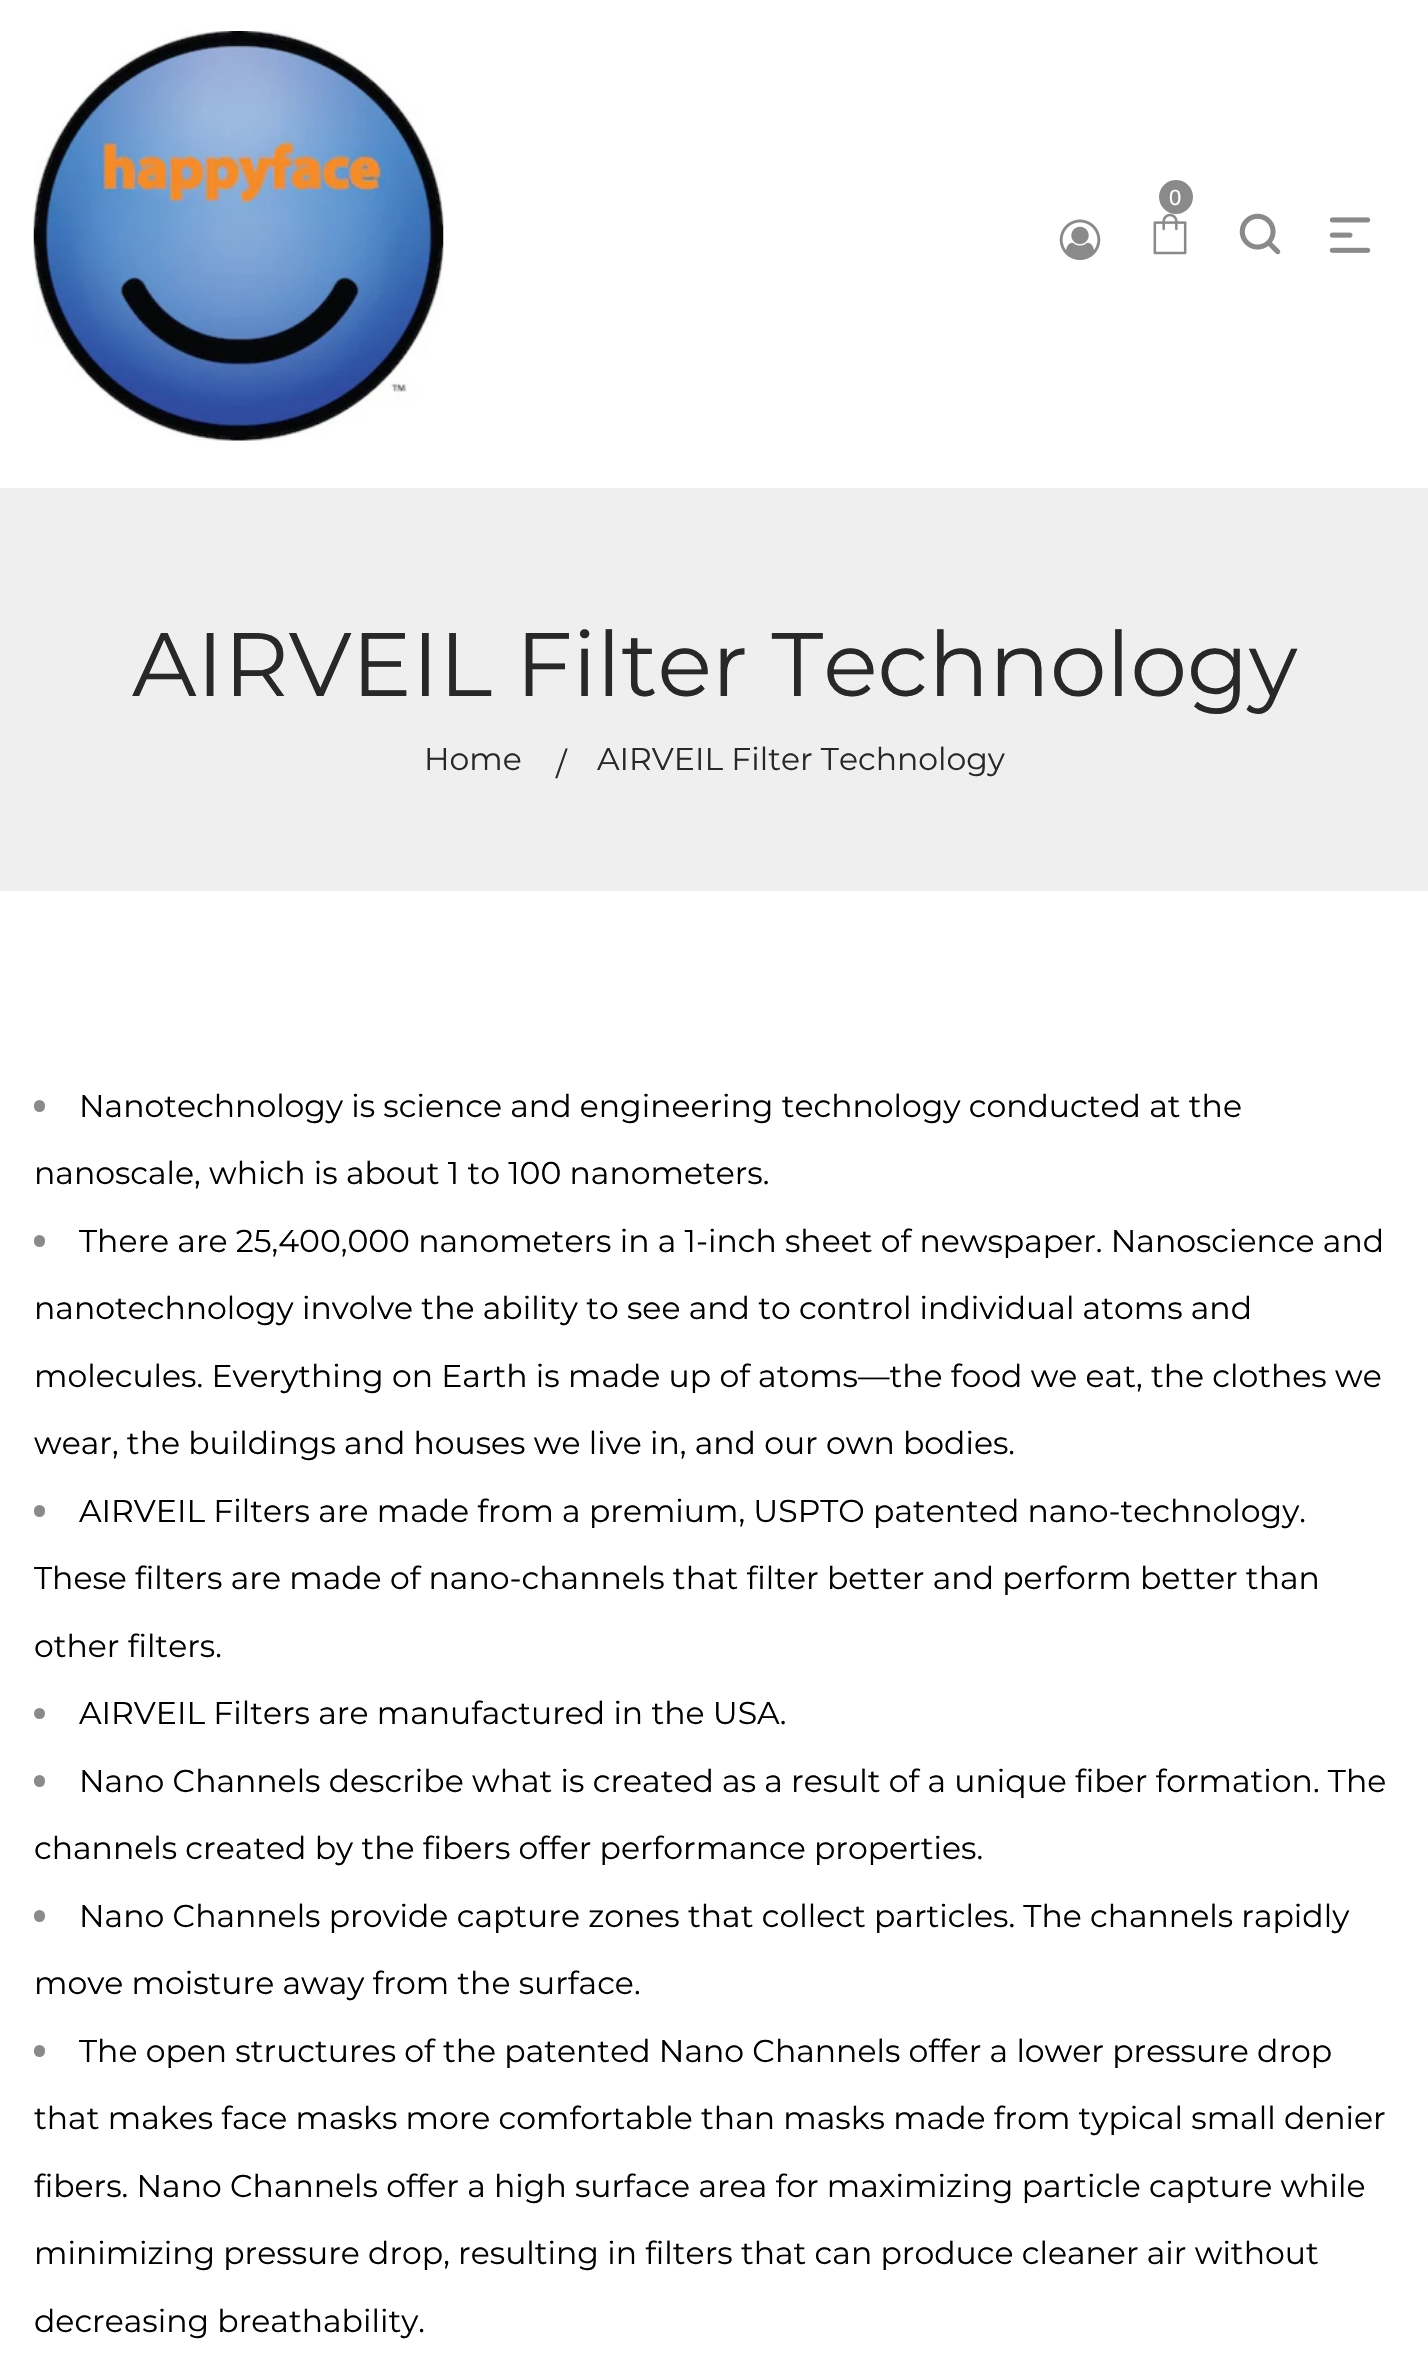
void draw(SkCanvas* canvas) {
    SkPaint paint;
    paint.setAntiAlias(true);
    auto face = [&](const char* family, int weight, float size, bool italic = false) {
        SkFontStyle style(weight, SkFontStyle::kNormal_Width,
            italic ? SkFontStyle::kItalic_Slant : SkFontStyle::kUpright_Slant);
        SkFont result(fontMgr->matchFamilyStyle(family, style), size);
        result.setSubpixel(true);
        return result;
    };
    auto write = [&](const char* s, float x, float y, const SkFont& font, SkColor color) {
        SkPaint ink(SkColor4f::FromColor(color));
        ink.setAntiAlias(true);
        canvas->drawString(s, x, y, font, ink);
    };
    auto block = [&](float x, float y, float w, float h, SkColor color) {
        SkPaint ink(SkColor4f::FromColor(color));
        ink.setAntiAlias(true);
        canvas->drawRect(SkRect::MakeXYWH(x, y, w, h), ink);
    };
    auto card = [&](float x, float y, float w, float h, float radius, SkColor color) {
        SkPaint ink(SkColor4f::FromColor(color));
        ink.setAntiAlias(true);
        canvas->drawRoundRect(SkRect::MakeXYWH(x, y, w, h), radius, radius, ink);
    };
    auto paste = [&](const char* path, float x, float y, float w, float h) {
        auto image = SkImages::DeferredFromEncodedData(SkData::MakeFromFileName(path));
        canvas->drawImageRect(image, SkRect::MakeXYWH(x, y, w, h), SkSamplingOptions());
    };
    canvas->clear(SK_ColorWHITE);
    paste("pic1.png", 33, 31, 411, 410);
    paste("pic2.png", 1153, 213, 34, 42);
    paint.setColor(SkColorSetRGB(138, 138, 138));
    canvas->drawCircle(1176, 197, 17, paint);
    auto kFont1 = face("Liberation Sans", 400, 22);
    write("0", 1169, 205, kFont1, SK_ColorWHITE);
    paste("pic3.png", 1059, 219, 42, 41);
    paste("pic4.png", 1239, 213, 42, 42);
    paste("pic5.png", 1329, 217, 42, 36);
    block(0, 488, 1428, 403, SkColorSetRGB(239, 239, 239));
    auto kFont2 = face("Montserrat", 100, 90);
    write("AIRVEIL Filter Technology", 132, 696, kFont2, SkColorSetRGB(40, 40, 40));
    auto kFont3 = face("Montserrat", 100, 31.5f);
    write("Home", 424, 770, kFont3, SkColorSetRGB(40, 40, 40));
    write("/", 556, 775, kFont3, SkColorSetRGB(40, 40, 40));
    write("AIRVEIL Filter Technology", 597, 770, kFont3, SkColorSetRGB(40, 40, 40));
    card(34, 1100, 11, 12, 5.5f, SkColorSetRGB(138, 138, 138));
    write("Nanotechnology is science and engineering technology conducted at the", 79, 1117, kFont3, SK_ColorBLACK);
    write("nanoscale, which is about 1 to 100 nanometers.", 34, 1184, kFont3, SK_ColorBLACK);
    card(34, 1235, 11, 12, 5.5f, SkColorSetRGB(138, 138, 138));
    write("There are 25,400,000 nanometers in a 1-inch sheet of newspaper. Nanoscience and", 79, 1252, kFont3, SK_ColorBLACK);
    write("nanotechnology involve the ability to see and to control individual atoms and", 34, 1319, kFont3, SK_ColorBLACK);
    write("molecules. Everything on Earth is made up of atoms—the food we eat, the clothes we", 34, 1387, kFont3, SK_ColorBLACK);
    write("wear, the buildings and houses we live in, and our own bodies.", 34, 1454, kFont3, SK_ColorBLACK);
    card(34, 1505, 11, 12, 5.5f, SkColorSetRGB(138, 138, 138));
    write("AIRVEIL Filters are made from a premium, USPTO patented nano-technology.", 79, 1522, kFont3, SK_ColorBLACK);
    write("These filters are made of nano-channels that filter better and perform better than", 34, 1589, kFont3, SK_ColorBLACK);
    write("other filters.", 34, 1657, kFont3, SK_ColorBLACK);
    canvas->drawCircle(39.5f, 1713.5f, 5.5f, paint);
    write("AIRVEIL Filters are manufactured in the USA.", 79, 1724, kFont3, SK_ColorBLACK);
    card(34, 1775, 11, 12, 5.5f, SkColorSetRGB(138, 138, 138));
    write("Nano Channels describe what is created as a result of a unique fiber formation. The", 79, 1792, kFont3, SK_ColorBLACK);
    write("channels created by the fibers offer performance properties.", 34, 1859, kFont3, SK_ColorBLACK);
    card(34, 1910, 11, 12, 5.5f, SkColorSetRGB(138, 138, 138));
    write("Nano Channels provide capture zones that collect particles. The channels rapidly", 79, 1927, kFont3, SK_ColorBLACK);
    write("move moisture away from the surface.", 34, 1994, kFont3, SK_ColorBLACK);
    card(34, 2045, 11, 12, 5.5f, SkColorSetRGB(138, 138, 138));
    write("The open structures of the patented Nano Channels offer a lower pressure drop", 79, 2062, kFont3, SK_ColorBLACK);
    write("that makes face masks more comfortable than masks made from typical small denier", 34, 2129, kFont3, SK_ColorBLACK);
    write("fibers. Nano Channels offer a high surface area for maximizing particle capture while", 34, 2197, kFont3, SK_ColorBLACK);
    write("minimizing pressure drop, resulting in filters that can produce cleaner air without", 34, 2264, kFont3, SK_ColorBLACK);
    write("decreasing breathability.", 34, 2332, kFont3, SK_ColorBLACK);
}
